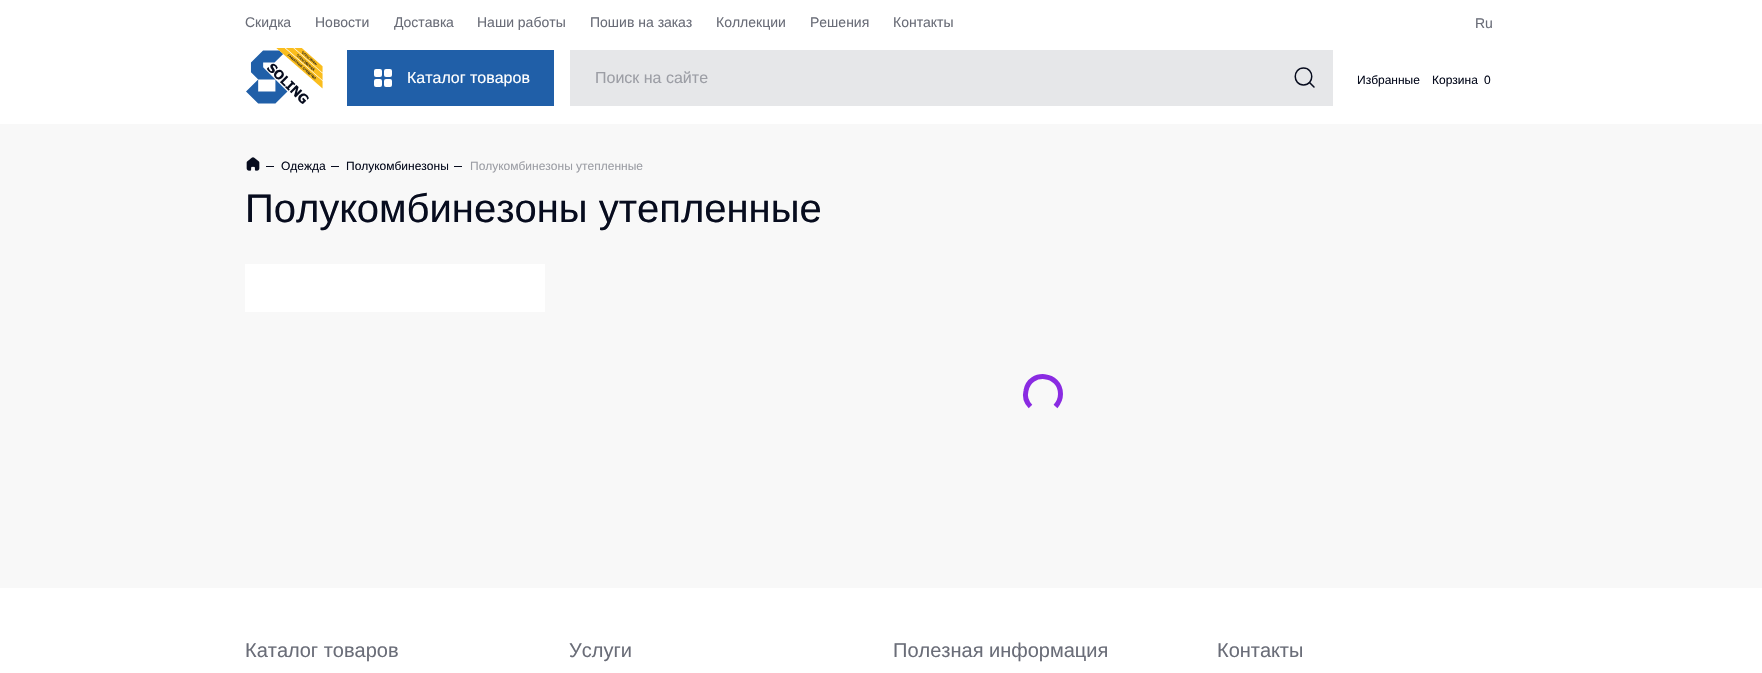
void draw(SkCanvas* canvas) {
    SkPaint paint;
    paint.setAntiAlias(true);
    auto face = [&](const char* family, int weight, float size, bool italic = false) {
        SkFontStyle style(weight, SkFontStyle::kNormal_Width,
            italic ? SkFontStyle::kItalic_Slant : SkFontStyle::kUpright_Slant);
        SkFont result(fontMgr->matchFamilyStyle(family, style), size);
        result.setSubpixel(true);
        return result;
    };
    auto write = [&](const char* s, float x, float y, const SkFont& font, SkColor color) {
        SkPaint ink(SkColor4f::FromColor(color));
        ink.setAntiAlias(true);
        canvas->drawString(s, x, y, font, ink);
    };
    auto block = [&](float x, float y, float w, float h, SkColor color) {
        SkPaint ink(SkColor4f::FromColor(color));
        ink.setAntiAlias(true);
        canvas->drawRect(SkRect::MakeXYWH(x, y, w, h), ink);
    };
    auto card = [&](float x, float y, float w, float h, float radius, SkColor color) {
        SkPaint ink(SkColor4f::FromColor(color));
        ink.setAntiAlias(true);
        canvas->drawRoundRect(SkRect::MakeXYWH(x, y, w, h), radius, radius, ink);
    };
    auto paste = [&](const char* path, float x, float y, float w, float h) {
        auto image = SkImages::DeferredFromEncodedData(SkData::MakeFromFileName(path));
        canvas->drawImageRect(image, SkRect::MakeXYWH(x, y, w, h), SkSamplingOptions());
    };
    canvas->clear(SkColorSetRGB(248, 248, 248));
    block(0, 0, 1762, 124, SK_ColorWHITE);
    auto kFont1 = face("Liberation Sans", 400, 14);
    write("Скидка", 245, 27, kFont1, SkColorSetRGB(106, 109, 120));
    write("Новости", 315, 27, kFont1, SkColorSetRGB(106, 109, 120));
    write("Доставка", 394, 27, kFont1, SkColorSetRGB(106, 109, 120));
    write("Наши работы", 477, 27, kFont1, SkColorSetRGB(106, 109, 120));
    write("Пошив на заказ", 590, 27, kFont1, SkColorSetRGB(106, 109, 120));
    write("Коллекции", 716, 27, kFont1, SkColorSetRGB(106, 109, 120));
    write("Решения", 810, 27, kFont1, SkColorSetRGB(106, 109, 120));
    write("Контакты", 893, 27, kFont1, SkColorSetRGB(106, 109, 120));
    write("Ru", 1475, 28, kFont1, SkColorSetRGB(106, 109, 120));
    paste("pic1.png", 246, 48, 77, 56);
    block(347, 50, 207, 56, SkColorSetRGB(32, 95, 168));
    card(374, 69, 8, 8, 2, SK_ColorWHITE);
    card(384, 69, 8, 8, 2, SK_ColorWHITE);
    card(374, 79, 8, 8, 2, SK_ColorWHITE);
    card(384, 79, 8, 8, 2, SK_ColorWHITE);
    auto kFont2 = face("Liberation Sans", 400, 16);
    write("Каталог товаров", 407, 83, kFont2, SK_ColorWHITE);
    block(570, 50, 763, 56, SkColorSetRGB(230, 231, 233));
    write("Поиск на сайте", 595, 83, kFont2, SkColorSetRGB(156, 158, 165));
    paint.setStyle(SkPaint::kStroke_Style);
    paint.setStrokeWidth(1.5f);
    paint.setStrokeJoin(SkPaint::kRound_Join);
    paint.setColor(SkColorSetRGB(7, 12, 30));
    canvas->drawPath(SkPathBuilder().moveTo(1303.5f, 85).cubicTo(1314.5f, 85, 1314.5f, 68, 1303.5f, 68).cubicTo(1292.5f, 68, 1292.5f, 85, 1303.5f, 85).close().detach(), paint);
    paint.setStrokeCap(SkPaint::kRound_Cap);
    canvas->drawPath(SkPathBuilder().moveTo(1309.5f, 82.5f).lineTo(1314, 87).detach(), paint);
    auto kFont3 = face("Liberation Sans", 400, 12);
    write("Избранные", 1357, 84, kFont3, SkColorSetRGB(7, 12, 30));
    write("Корзина", 1432, 84, kFont3, SkColorSetRGB(7, 12, 30));
    write("0", 1484, 84, kFont3, SkColorSetRGB(7, 12, 30));
    paste("pic2.png", 246, 157, 14, 14);
    block(266, 166, 8, 1, SkColorSetRGB(7, 12, 30));
    write("Одежда", 281, 170, kFont3, SkColorSetRGB(7, 12, 30));
    block(331, 166, 8, 1, SkColorSetRGB(7, 12, 30));
    write("Полукомбинезоны", 346, 170, kFont3, SkColorSetRGB(7, 12, 30));
    block(454, 166, 8, 1, SkColorSetRGB(7, 12, 30));
    write("Полукомбинезоны утепленные", 470, 170, kFont3, SkColorSetRGB(156, 158, 165));
    auto kFont4 = face("Liberation Sans", 400, 40);
    write("Полукомбинезоны утепленные", 245, 222, kFont4, SkColorSetRGB(7, 12, 30));
    block(245, 264, 300, 48, SK_ColorWHITE);
    paint.setStrokeWidth(5);
    paint.setStrokeCap(SkPaint::kButt_Cap);
    paint.setStrokeJoin(SkPaint::kMiter_Join);
    paint.setColor(SkColorSetRGB(138, 43, 226));
    canvas->drawPath(SkPathBuilder().moveTo(1030.5f, 406.5f).cubicTo(1026.5f, 402.5f, 1024.5f, 396.5f, 1026, 390.5f).cubicTo(1030, 370, 1060.5f, 373, 1060.5f, 394).cubicTo(1060.5f, 398.5f, 1058.5f, 403, 1055.5f, 406.5f).detach(), paint);
    block(0, 588, 1762, 85, SK_ColorWHITE);
    auto kFont5 = face("Liberation Sans", 400, 20);
    write("Каталог товаров", 245, 657, kFont5, SkColorSetRGB(106, 109, 120));
    write("Услуги", 569, 657, kFont5, SkColorSetRGB(106, 109, 120));
    write("Полезная информация", 893, 657, kFont5, SkColorSetRGB(106, 109, 120));
    write("Контакты", 1217, 657, kFont5, SkColorSetRGB(106, 109, 120));
}
